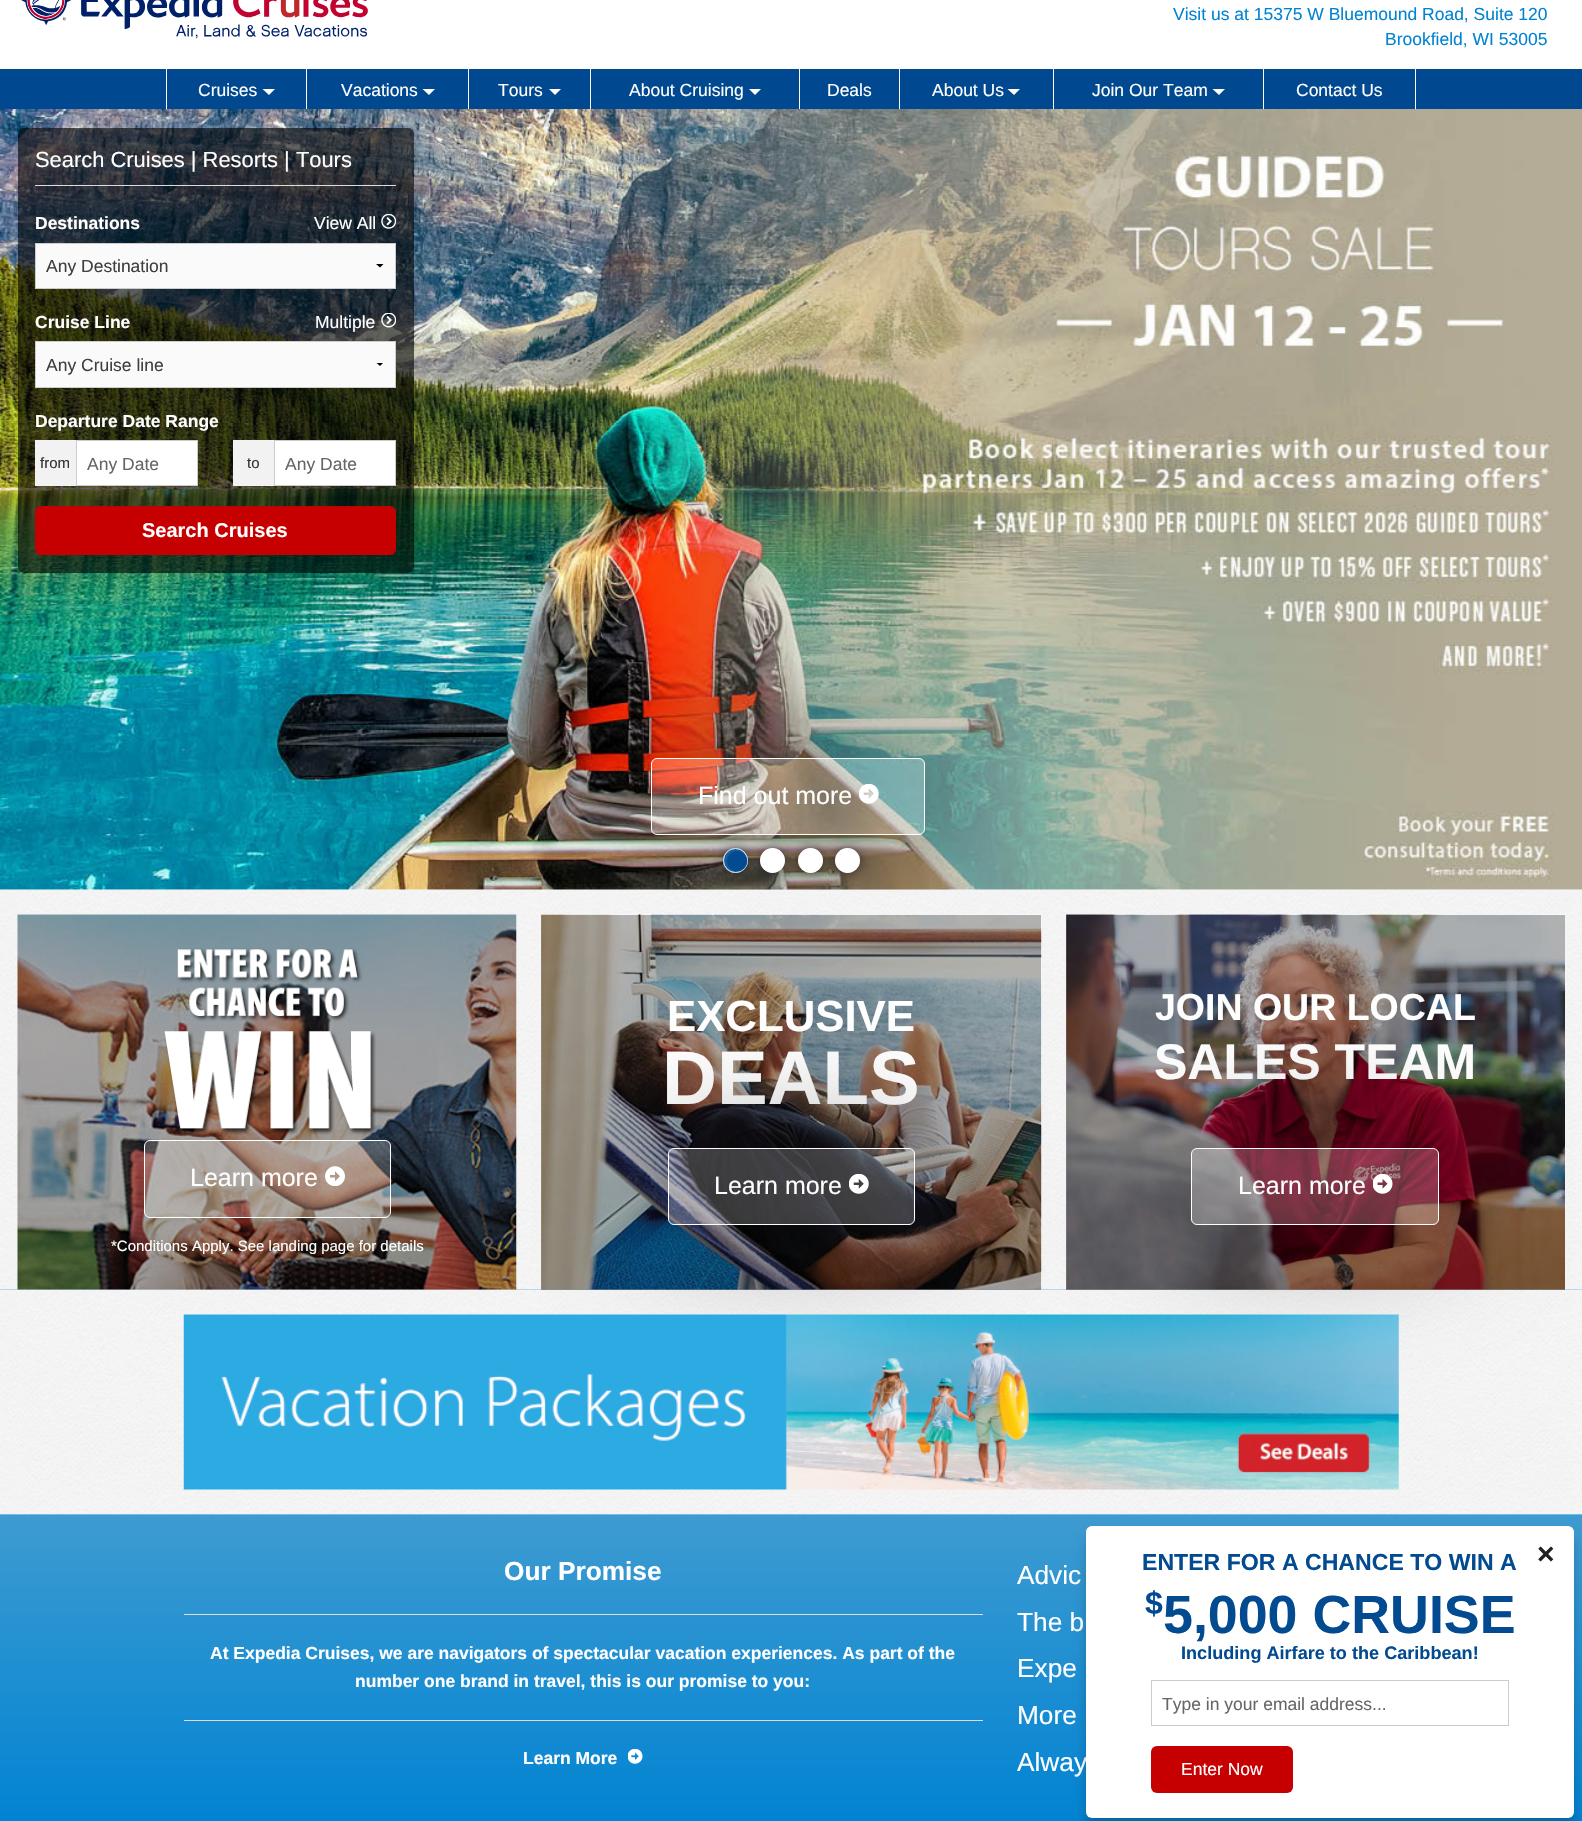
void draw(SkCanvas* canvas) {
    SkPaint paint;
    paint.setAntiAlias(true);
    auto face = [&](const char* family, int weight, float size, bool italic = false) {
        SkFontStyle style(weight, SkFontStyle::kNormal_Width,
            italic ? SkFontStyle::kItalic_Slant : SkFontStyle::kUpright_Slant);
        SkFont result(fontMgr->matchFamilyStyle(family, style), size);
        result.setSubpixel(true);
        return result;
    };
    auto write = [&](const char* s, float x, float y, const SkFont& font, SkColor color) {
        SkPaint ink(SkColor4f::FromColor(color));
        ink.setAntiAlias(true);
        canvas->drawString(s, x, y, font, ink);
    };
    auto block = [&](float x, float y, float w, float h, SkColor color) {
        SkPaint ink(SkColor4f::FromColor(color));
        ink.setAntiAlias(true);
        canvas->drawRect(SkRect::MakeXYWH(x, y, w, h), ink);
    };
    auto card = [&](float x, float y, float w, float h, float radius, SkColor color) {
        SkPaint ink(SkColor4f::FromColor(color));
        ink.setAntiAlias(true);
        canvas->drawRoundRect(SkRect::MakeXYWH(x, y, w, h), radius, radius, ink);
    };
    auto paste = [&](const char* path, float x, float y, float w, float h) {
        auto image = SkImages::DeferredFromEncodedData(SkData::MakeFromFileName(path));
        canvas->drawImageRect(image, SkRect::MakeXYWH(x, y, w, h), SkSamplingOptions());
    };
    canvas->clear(SkColorSetRGB(0, 131, 210));
    block(0, 0, 1582, 69, SK_ColorWHITE);
    paste("pic1.png", 21, 0, 347, 39);
    auto kFont1 = face("Liberation Sans", 400, 17.5f);
    write("Visit us at 15375 W Bluemound Road, Suite 120", 1173, 20, kFont1, SkColorSetRGB(0, 131, 210));
    write("Brookfield, WI 53005", 1385, 45, kFont1, SkColorSetRGB(0, 131, 210));
    block(0, 69, 1582, 41, SkColorSetRGB(0, 73, 144));
    block(166, 69, 1, 41, SK_ColorWHITE);
    write("Cruises", 198, 96, kFont1, SK_ColorWHITE);
    paint.setColor(SK_ColorWHITE);
    canvas->drawPath(SkPathBuilder().moveTo(262.5f, 89).lineTo(275, 89).lineTo(269, 95).close().detach(), paint);
    block(306, 69, 1, 41, SK_ColorWHITE);
    write("Vacations", 341, 96, kFont1, SK_ColorWHITE);
    canvas->drawPath(SkPathBuilder().moveTo(422.5f, 89).lineTo(435, 89).lineTo(429, 95).close().detach(), paint);
    block(468, 69, 1, 41, SK_ColorWHITE);
    write("Tours", 498, 96, kFont1, SK_ColorWHITE);
    canvas->drawPath(SkPathBuilder().moveTo(549, 89).lineTo(561, 89).lineTo(555, 95).close().detach(), paint);
    block(590, 69, 1, 41, SK_ColorWHITE);
    write("About Cruising", 629, 96, kFont1, SK_ColorWHITE);
    canvas->drawPath(SkPathBuilder().moveTo(749, 89).lineTo(761, 89).lineTo(755, 95).close().detach(), paint);
    block(799, 69, 1, 41, SK_ColorWHITE);
    write("Deals", 827, 96, kFont1, SK_ColorWHITE);
    block(899, 69, 1, 41, SK_ColorWHITE);
    write("About Us", 932, 96, kFont1, SK_ColorWHITE);
    canvas->drawPath(SkPathBuilder().moveTo(1007.5f, 89).lineTo(1020, 89).lineTo(1014, 95).close().detach(), paint);
    block(1053, 69, 1, 41, SK_ColorWHITE);
    write("Join Our Team", 1092, 96, kFont1, SK_ColorWHITE);
    canvas->drawPath(SkPathBuilder().moveTo(1212.5f, 89).lineTo(1225, 89).lineTo(1219, 95).close().detach(), paint);
    block(1415, 69, 1, 41, SK_ColorWHITE);
    block(1263, 69, 1, 41, SK_ColorWHITE);
    write("Contact Us", 1296, 96, kFont1, SK_ColorWHITE);
    block(0, 110, 1582, 780, SK_ColorWHITE);
    paste("pic4.png", 0, 109, 1582, 781);
    card(18, 128, 396, 445, 6, SkColorSetARGB(153, 0, 0, 0));
    auto kFont2 = face("Liberation Sans", 400, 21.9f);
    write("Search Cruises | Resorts | Tours", 35, 167, kFont2, SK_ColorWHITE);
    block(35, 185, 361, 1, SkColorSetRGB(221, 221, 221));
    auto kFont3 = face("Liberation Sans", 700, 17.5f);
    write("Destinations", 35, 229, kFont3, SK_ColorWHITE);
    write("View All", 314, 229, kFont1, SK_ColorWHITE);
    paste("pic2.png", 381, 214, 15, 15);
    block(36, 244, 359, 44, SkColorSetRGB(250, 250, 250));
    paint.setColor(SK_ColorBLACK);
    canvas->drawPath(SkPathBuilder().moveTo(383.5f, 264).lineTo(380, 267.5f).lineTo(376, 264).close().detach(), paint);
    paint.setStyle(SkPaint::kStroke_Style);
    paint.setStrokeWidth(1);
    paint.setColor(SkColorSetRGB(204, 204, 204));
    canvas->drawRect(SkRect::MakeXYWH(35.5f, 243.5f, 360, 45), paint);
    write("Any Destination", 46, 272, kFont1, SkColorSetRGB(63, 63, 63));
    write("Cruise Line", 35, 328, kFont3, SK_ColorWHITE);
    write("Multiple", 315, 328, kFont1, SK_ColorWHITE);
    paste("pic3.png", 381, 313, 15, 15);
    block(36, 342, 359, 45, SkColorSetRGB(250, 250, 250));
    canvas->save();
    canvas->clipRect(SkRect::MakeXYWH(365, 363, 30, 4));
    paint.setStyle(SkPaint::kFill_Style);
    paint.setColor(SK_ColorBLACK);
    canvas->drawPath(SkPathBuilder().moveTo(383.5f, 362.5f).lineTo(380, 366).lineTo(376, 362.5f).close().detach(), paint);
    canvas->restore();
    paint.setStyle(SkPaint::kStroke_Style);
    paint.setColor(SkColorSetRGB(204, 204, 204));
    canvas->drawRect(SkRect::MakeXYWH(35.5f, 341.5f, 360, 46), paint);
    write("Any Cruise line", 46, 371, kFont1, SkColorSetRGB(63, 63, 63));
    write("Departure Date Range", 35, 427, kFont3, SK_ColorWHITE);
    block(35, 440, 41, 46, SkColorSetRGB(242, 242, 242));
    auto kFont4 = face("Liberation Sans", 400, 15);
    write("from", 40, 468, kFont4, SkColorSetRGB(51, 51, 51));
    paint.setStyle(SkPaint::kFill_Style);
    paint.setColor(SK_ColorWHITE);
    canvas->drawRect(SkRect::MakeXYWH(76.5f, 440.5f, 121, 45), paint);
    paint.setStyle(SkPaint::kStroke_Style);
    paint.setColor(SkColorSetRGB(204, 204, 204));
    canvas->drawRect(SkRect::MakeXYWH(76.5f, 440.5f, 121, 45), paint);
    write("Any Date", 87, 470, kFont1, SkColorSetRGB(102, 102, 102));
    block(233, 440, 41, 46, SkColorSetRGB(242, 242, 242));
    write("to", 247, 468, kFont4, SkColorSetRGB(51, 51, 51));
    paint.setStyle(SkPaint::kFill_Style);
    paint.setColor(SK_ColorWHITE);
    canvas->drawRect(SkRect::MakeXYWH(274.5f, 440.5f, 121, 45), paint);
    paint.setStyle(SkPaint::kStroke_Style);
    paint.setColor(SkColorSetRGB(204, 204, 204));
    canvas->drawRect(SkRect::MakeXYWH(274.5f, 440.5f, 121, 45), paint);
    write("Any Date", 285, 470, kFont1, SkColorSetRGB(102, 102, 102));
    card(35, 506, 361, 49, 6, SkColorSetRGB(198, 0, 0));
    auto kFont5 = face("Liberation Sans", 700, 20);
    write("Search Cruises", 142, 537, kFont5, SK_ColorWHITE);
    paste("pic6.png", 0, 890, 1582, 400);
    canvas->save();
    canvas->clipRect(SkRect::MakeXYWH(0, 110, 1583, 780));
    canvas->clipPath(SkPathBuilder(SkPathFillType::kEvenOdd).moveTo(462, 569).lineTo(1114, 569).lineTo(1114, 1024).lineTo(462, 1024).close().moveTo(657, 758).lineTo(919, 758).cubicTo(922.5f, 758, 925, 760.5f, 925, 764).lineTo(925, 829).cubicTo(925, 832.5f, 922.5f, 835, 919, 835).lineTo(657, 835).cubicTo(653.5f, 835, 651, 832.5f, 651, 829).lineTo(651, 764).cubicTo(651, 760.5f, 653.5f, 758, 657, 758).close().detach(), true);
    paint.setStyle(SkPaint::kFill_Style);
    paint.setColor(SkColorSetARGB(128, 0, 0, 0));
    paint.setMaskFilter(SkMaskFilter::MakeBlur(kNormal_SkBlurStyle, 62.5f));
    canvas->drawRoundRect(SkRect::MakeXYWH(651, 758, 274, 77), 6, 6, paint);
    paint.setMaskFilter(nullptr);
    canvas->restore();
    paint.setColor(SkColorSetARGB(51, 255, 255, 255));
    canvas->drawRoundRect(SkRect::MakeXYWH(651.5f, 758.5f, 273, 76), 5.5f, 5.5f, paint);
    paint.setStyle(SkPaint::kStroke_Style);
    paint.setColor(SK_ColorWHITE);
    canvas->drawRoundRect(SkRect::MakeXYWH(651.5f, 758.5f, 273, 76), 5.5f, 5.5f, paint);
    auto kFont6 = face("Liberation Sans", 400, 25);
    write("Find out more", 698, 804, kFont6, SK_ColorWHITE);
    paste("pic5.png", 859, 784, 20, 20);
    paint.setStyle(SkPaint::kFill_Style);
    paint.setColor(SkColorSetARGB(128, 0, 0, 0));
    paint.setMaskFilter(SkMaskFilter::MakeBlur(kNormal_SkBlurStyle, 6));
    canvas->drawRoundRect(SkRect::MakeXYWH(723, 848, 25, 25), 12.5f, 12.5f, paint);
    paint.setMaskFilter(nullptr);
    paint.setColor(SK_ColorWHITE);
    canvas->drawCircle(735.5f, 860.5f, 12.5f, paint);
    paint.setColor(SkColorSetARGB(230, 0, 73, 144));
    canvas->drawCircle(735.5f, 860.5f, 12.5f, paint);
    paint.setStyle(SkPaint::kStroke_Style);
    paint.setColor(SkColorSetARGB(230, 255, 255, 255));
    canvas->drawCircle(735.5f, 860.5f, 12, paint);
    auto kFont7 = face("Liberation Sans", 400, 75);
    write("•", 724, 886, kFont7, SkColorSetRGB(3, 75, 145));
    paint.setStyle(SkPaint::kFill_Style);
    paint.setColor(SkColorSetARGB(128, 0, 0, 0));
    paint.setMaskFilter(SkMaskFilter::MakeBlur(kNormal_SkBlurStyle, 6));
    canvas->drawRoundRect(SkRect::MakeXYWH(760, 848, 25, 25), 12.5f, 12.5f, paint);
    paint.setMaskFilter(nullptr);
    paint.setColor(SK_ColorWHITE);
    canvas->drawCircle(772.5f, 860.5f, 12.5f, paint);
    paint.setStyle(SkPaint::kStroke_Style);
    paint.setColor(SkColorSetARGB(64, 255, 255, 255));
    canvas->drawCircle(772.5f, 860.5f, 12, paint);
    paint.setStyle(SkPaint::kFill_Style);
    paint.setColor(SkColorSetARGB(128, 0, 0, 0));
    paint.setMaskFilter(SkMaskFilter::MakeBlur(kNormal_SkBlurStyle, 6));
    canvas->drawRoundRect(SkRect::MakeXYWH(798, 848, 25, 25), 12.5f, 12.5f, paint);
    paint.setMaskFilter(nullptr);
    paint.setColor(SK_ColorWHITE);
    canvas->drawCircle(810.5f, 860.5f, 12.5f, paint);
    paint.setStyle(SkPaint::kStroke_Style);
    paint.setColor(SkColorSetARGB(64, 255, 255, 255));
    canvas->drawCircle(810.5f, 860.5f, 12, paint);
    paint.setStyle(SkPaint::kFill_Style);
    paint.setColor(SkColorSetARGB(128, 0, 0, 0));
    paint.setMaskFilter(SkMaskFilter::MakeBlur(kNormal_SkBlurStyle, 6));
    canvas->drawRoundRect(SkRect::MakeXYWH(835, 848, 25, 25), 12.5f, 12.5f, paint);
    paint.setMaskFilter(nullptr);
    paint.setColor(SK_ColorWHITE);
    canvas->drawCircle(847.5f, 860.5f, 12.5f, paint);
    paint.setStyle(SkPaint::kStroke_Style);
    paint.setColor(SkColorSetARGB(64, 255, 255, 255));
    canvas->drawCircle(847.5f, 860.5f, 12, paint);
    paste("pic14.png", 0, 1289, 1582, 226);
    paste("pic7.png", 541, 914, 501, 376);
    block(541, 915, 500, 375, SkColorSetARGB(77, 0, 0, 0));
    auto kFont8 = face("Liberation Sans", 700, 43.75f);
    write("EXCLUSIVE", 667, 1031, kFont8, SK_ColorWHITE);
    auto kFont9 = face("Liberation Sans", 700, 76);
    write("DEALS", 662, 1104, kFont9, SK_ColorWHITE);
    paste("pic11.png", 17, 914, 500, 376);
    canvas->save();
    canvas->clipPath(SkPathBuilder(SkPathFillType::kEvenOdd).moveTo(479, 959).lineTo(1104, 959).lineTo(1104, 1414).lineTo(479, 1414).close().moveTo(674, 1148).lineTo(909, 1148).cubicTo(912.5f, 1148, 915, 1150.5f, 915, 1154).lineTo(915, 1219).cubicTo(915, 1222.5f, 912.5f, 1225, 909, 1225).lineTo(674, 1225).cubicTo(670.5f, 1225, 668, 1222.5f, 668, 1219).lineTo(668, 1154).cubicTo(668, 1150.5f, 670.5f, 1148, 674, 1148).close().detach(), true);
    paint.setStyle(SkPaint::kFill_Style);
    paint.setColor(SkColorSetARGB(128, 0, 0, 0));
    paint.setMaskFilter(SkMaskFilter::MakeBlur(kNormal_SkBlurStyle, 62.5f));
    canvas->drawRoundRect(SkRect::MakeXYWH(668, 1148, 247, 77), 6, 6, paint);
    paint.setMaskFilter(nullptr);
    canvas->restore();
    paint.setColor(SkColorSetARGB(51, 255, 255, 255));
    canvas->drawRoundRect(SkRect::MakeXYWH(668.5f, 1148.5f, 246, 76), 5.5f, 5.5f, paint);
    paint.setStyle(SkPaint::kStroke_Style);
    paint.setColor(SK_ColorWHITE);
    canvas->drawRoundRect(SkRect::MakeXYWH(668.5f, 1148.5f, 246, 76), 5.5f, 5.5f, paint);
    write("Learn more", 714, 1194, kFont6, SK_ColorWHITE);
    paste("pic8.png", 849, 1174, 20, 20);
    paste("pic9.png", 1066, 914, 499, 376);
    block(1066, 915, 499, 375, SkColorSetARGB(77, 0, 0, 0));
    auto kFont10 = face("Liberation Sans", 700, 37.5f);
    write("JOIN OUR LOCAL", 1155, 1020, kFont10, SK_ColorWHITE);
    auto kFont11 = face("Liberation Sans", 700, 50);
    write("SALES TEAM", 1154, 1079, kFont11, SK_ColorWHITE);
    canvas->save();
    canvas->clipPath(SkPathBuilder(SkPathFillType::kEvenOdd).moveTo(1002, 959).lineTo(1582, 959).lineTo(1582, 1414).lineTo(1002, 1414).close().moveTo(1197, 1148).lineTo(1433, 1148).cubicTo(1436.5f, 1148, 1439, 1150.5f, 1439, 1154).lineTo(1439, 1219).cubicTo(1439, 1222.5f, 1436.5f, 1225, 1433, 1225).lineTo(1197, 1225).cubicTo(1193.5f, 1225, 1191, 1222.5f, 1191, 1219).lineTo(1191, 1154).cubicTo(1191, 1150.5f, 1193.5f, 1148, 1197, 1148).close().detach(), true);
    paint.setStyle(SkPaint::kFill_Style);
    paint.setColor(SkColorSetARGB(128, 0, 0, 0));
    paint.setMaskFilter(SkMaskFilter::MakeBlur(kNormal_SkBlurStyle, 62.5f));
    canvas->drawRoundRect(SkRect::MakeXYWH(1191, 1148, 248, 77), 6, 6, paint);
    paint.setMaskFilter(nullptr);
    canvas->restore();
    paint.setColor(SkColorSetARGB(51, 255, 255, 255));
    canvas->drawRoundRect(SkRect::MakeXYWH(1191.5f, 1148.5f, 247, 76), 5.5f, 5.5f, paint);
    paint.setStyle(SkPaint::kStroke_Style);
    paint.setColor(SK_ColorWHITE);
    canvas->drawRoundRect(SkRect::MakeXYWH(1191.5f, 1148.5f, 247, 76), 5.5f, 5.5f, paint);
    write("Learn more", 1238, 1194, kFont6, SK_ColorWHITE);
    paste("pic10.png", 1373, 1174, 20, 20);
    paste("pic12.png", 164, 948, 212, 187);
    paint.setStyle(SkPaint::kFill_Style);
    paint.setColor(SkColorSetARGB(51, 255, 255, 255));
    canvas->drawRoundRect(SkRect::MakeXYWH(144.5f, 1140.5f, 246, 77), 5.5f, 5.5f, paint);
    paint.setStyle(SkPaint::kStroke_Style);
    paint.setColor(SK_ColorWHITE);
    canvas->drawRoundRect(SkRect::MakeXYWH(144.5f, 1140.5f, 246, 77), 5.5f, 5.5f, paint);
    write("Learn more", 190, 1186, kFont6, SK_ColorWHITE);
    paste("pic13.png", 325, 1166, 20, 20);
    write("*Conditions Apply. See landing page for details", 111, 1251, kFont4, SK_ColorWHITE);
    paste("pic15.png", 183, 1314, 1216, 176);
    paint.setStyle(SkPaint::kFill_Style);
    {
        const SkColor colors[] = {SkColorSetRGB(62, 155, 209), SkColorSetRGB(0, 131, 210)};
        const float stops[] = {0, 1};
        const SkPoint ends[] = {{791, 1515}, {791, 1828}};
        paint.setShader(SkGradientShader::MakeLinear(ends, colors, stops, 2, SkTileMode::kClamp));
        paint.setAlpha(255);
    }
    canvas->drawRect(SkRect::MakeXYWH(0, 1515, 1582, 300), paint);
    auto kFont12 = face("Liberation Sans", 700, 26.25f);
    write("Our Promise", 504, 1580, kFont12, SK_ColorWHITE);
    block(184, 1614, 799, 1, SkColorSetRGB(221, 221, 221));
    write("At Expedia Cruises, we are navigators of spectacular vacation experiences. As part of the", 210, 1659, kFont3, SK_ColorWHITE);
    write("number one brand in travel, this is our promise to you:", 355, 1687, kFont3, SK_ColorWHITE);
    block(184, 1720, 799, 1, SkColorSetRGB(221, 221, 221));
    write("Learn More", 523, 1764, kFont3, SK_ColorWHITE);
    paste("pic16.png", 628, 1749, 15, 15);
    auto kFont13 = face("Liberation Sans", 400, 26.25f);
    write("Advic", 1017, 1584, kFont13, SK_ColorWHITE);
    write("The b", 1017, 1631, kFont13, SK_ColorWHITE);
    write("Expe", 1017, 1677, kFont13, SK_ColorWHITE);
    write("More", 1017, 1724, kFont13, SK_ColorWHITE);
    write("Alway", 1017, 1771, kFont13, SK_ColorWHITE);
    paint.setShader(nullptr);
    paint.setColor(SkColorSetARGB(51, 0, 0, 0));
    paint.setMaskFilter(SkMaskFilter::MakeBlur(kNormal_SkBlurStyle, 6));
    canvas->drawRoundRect(SkRect::MakeXYWH(1086, 1539, 488, 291), 6, 6, paint);
    paint.setMaskFilter(nullptr);
    card(1086, 1526, 488, 292, 6, SK_ColorWHITE);
    auto kFont14 = face("Liberation Sans", 700, 23.1f);
    write("ENTER FOR A CHANCE TO WIN A", 1142, 1570, kFont14, SkColorSetRGB(3, 75, 145));
    auto kFont15 = face("Liberation Sans", 700, 32);
    write("$", 1145, 1614, kFont15, SkColorSetRGB(3, 75, 145));
    auto kFont16 = face("Liberation Sans", 700, 53.75f);
    write("5,000 CRUISE", 1163, 1633, kFont16, SkColorSetRGB(3, 75, 145));
    auto kFont17 = face("Liberation Sans", 700, 18.1f);
    write("Including Airfare to the Caribbean!", 1181, 1659, kFont17, SkColorSetRGB(3, 75, 145));
    paint.setStyle(SkPaint::kStroke_Style);
    paint.setColor(SkColorSetRGB(204, 204, 204));
    canvas->drawRect(SkRect::MakeXYWH(1151.5f, 1680.5f, 357, 45), paint);
    write("Type in your email address...", 1162, 1710, kFont1, SkColorSetRGB(102, 102, 102));
    card(1151, 1746, 142, 47, 6, SkColorSetRGB(198, 0, 0));
    write("Enter Now", 1181, 1775, kFont1, SK_ColorWHITE);
    auto kFont18 = face("Liberation Sans", 700, 30);
    write("×", 1537, 1564, kFont18, SkColorSetRGB(34, 34, 34));
}
